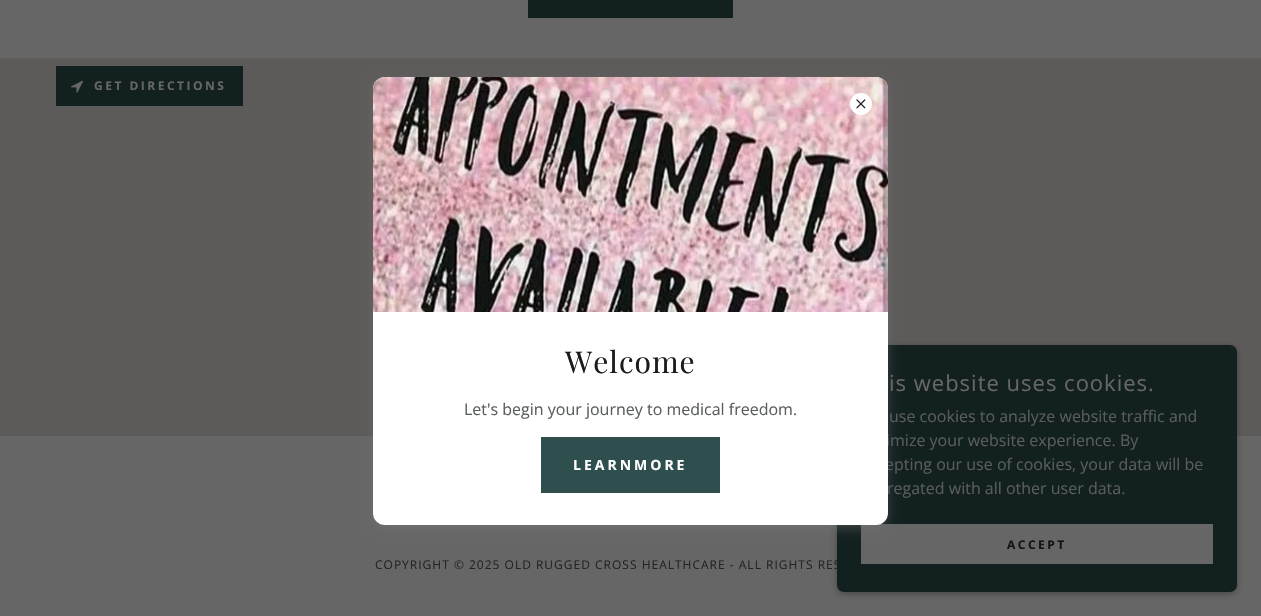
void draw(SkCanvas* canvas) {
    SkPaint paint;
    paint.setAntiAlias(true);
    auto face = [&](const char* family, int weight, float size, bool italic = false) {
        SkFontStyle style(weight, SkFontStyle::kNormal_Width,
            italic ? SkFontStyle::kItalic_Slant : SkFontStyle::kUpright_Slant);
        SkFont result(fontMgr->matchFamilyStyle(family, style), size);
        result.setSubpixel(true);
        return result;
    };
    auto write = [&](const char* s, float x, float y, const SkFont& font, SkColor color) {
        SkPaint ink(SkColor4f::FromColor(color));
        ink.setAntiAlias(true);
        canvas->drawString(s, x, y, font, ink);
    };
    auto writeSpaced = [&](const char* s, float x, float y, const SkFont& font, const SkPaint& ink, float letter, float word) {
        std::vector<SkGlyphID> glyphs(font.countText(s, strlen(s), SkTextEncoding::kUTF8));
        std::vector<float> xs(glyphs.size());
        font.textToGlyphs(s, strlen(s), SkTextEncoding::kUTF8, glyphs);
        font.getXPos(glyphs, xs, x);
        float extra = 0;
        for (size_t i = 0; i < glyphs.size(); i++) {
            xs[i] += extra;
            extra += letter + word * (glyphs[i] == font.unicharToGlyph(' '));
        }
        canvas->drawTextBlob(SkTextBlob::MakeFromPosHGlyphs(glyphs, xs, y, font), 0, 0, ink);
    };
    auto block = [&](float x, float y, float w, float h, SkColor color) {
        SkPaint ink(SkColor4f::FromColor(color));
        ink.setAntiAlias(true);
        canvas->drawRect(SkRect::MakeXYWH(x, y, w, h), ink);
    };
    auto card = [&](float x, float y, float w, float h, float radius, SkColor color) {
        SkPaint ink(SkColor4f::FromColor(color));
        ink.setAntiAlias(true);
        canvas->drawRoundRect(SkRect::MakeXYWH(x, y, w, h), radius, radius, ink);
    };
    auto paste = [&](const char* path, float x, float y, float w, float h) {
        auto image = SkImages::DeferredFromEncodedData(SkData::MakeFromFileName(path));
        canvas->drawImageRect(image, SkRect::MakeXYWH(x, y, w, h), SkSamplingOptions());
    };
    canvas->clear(SkColorSetRGB(102, 102, 102));
    block(528, 0, 205, 18, SkColorSetRGB(19, 32, 32));
    block(0, 58, 1261, 378, SkColorSetRGB(92, 91, 89));
    block(56, 66, 187, 40, SkColorSetRGB(19, 32, 32));
    paste("pic1.png", 71, 80, 12, 13);
    auto kFont1 = face("Open Sans", 700, 12);
    paint.setColor(SkColorSetRGB(102, 102, 102));
    writeSpaced("GET DIRECTIONS", 94, 90, kFont1, paint, 2.5f, 0);
    paint.setColor(SkColorSetARGB(77, 0, 0, 0));
    paint.setMaskFilter(SkMaskFilter::MakeBlur(kNormal_SkBlurStyle, 3));
    canvas->drawRoundRect(SkRect::MakeXYWH(837, 347, 400, 247), 7, 7, paint);
    paint.setMaskFilter(nullptr);
    auto kFont2 = face("Open Sans", 400, 12);
    paint.setColor(SkColorSetRGB(36, 36, 36));
    writeSpaced("COPYRIGHT © 2025 OLD RUGGED CROSS HEALTHCARE - ALL RIGHTS RES", 375, 569, kFont2, paint, 1, 0);
    card(837, 345, 400, 247, 7, SkColorSetRGB(19, 32, 32));
    block(861, 524, 352, 40, SkColorSetRGB(102, 102, 102));
    paint.setColor(SkColorSetARGB(102, 117, 117, 117));
    paint.setMaskFilter(SkMaskFilter::MakeBlur(kNormal_SkBlurStyle, 6));
    canvas->drawRoundRect(SkRect::MakeXYWH(373, 81, 515, 448), 12, 12, paint);
    paint.setMaskFilter(nullptr);
    auto kFont3 = face("Open Sans", 400, 16);
    write("imize your website experience. By", 886, 446, kFont3, SkColorSetRGB(89, 93, 93));
    write("epting our use of cookies, your data will be", 885, 470, kFont3, SkColorSetRGB(89, 93, 93));
    card(373, 77, 515, 448, 12, SK_ColorWHITE);
    paste("pic3.png", 373, 77, 515, 235);
    paint.setColor(SK_ColorWHITE);
    canvas->drawCircle(861, 104, 11, paint);
    paste("pic2.png", 856, 99, 10, 10);
    auto kFont4 = face("Playfair Display", 400, 30);
    paint.setColor(SkColorSetRGB(27, 27, 27));
    writeSpaced("Welcome", 565, 373, kFont4, paint, 1, 0);
    write("Let's begin your journey to medical freedom.", 464, 415, kFont3, SkColorSetRGB(89, 93, 93));
    block(541, 437, 179, 56, SkColorSetRGB(47, 79, 79));
    auto kFont5 = face("Open Sans", 700, 14);
    paint.setColor(SK_ColorWHITE);
    writeSpaced("LEARNMORE", 573, 470, kFont5, paint, 3, 0);
    auto kFont6 = face("Open Sans", 400, 22);
    paint.setColor(SkColorSetRGB(102, 102, 102));
    writeSpaced("is website uses cookies.", 889, 391, kFont6, paint, 1, 0);
    write("use cookies to analyze website traffic and", 889, 422, kFont3, SkColorSetRGB(89, 93, 93));
    write("regated with all other user data.", 887, 494, kFont3, SkColorSetRGB(89, 93, 93));
    paint.setColor(SkColorSetRGB(19, 19, 19));
    writeSpaced("ACCEPT", 1007, 549, kFont1, paint, 2.5f, 0);
}
